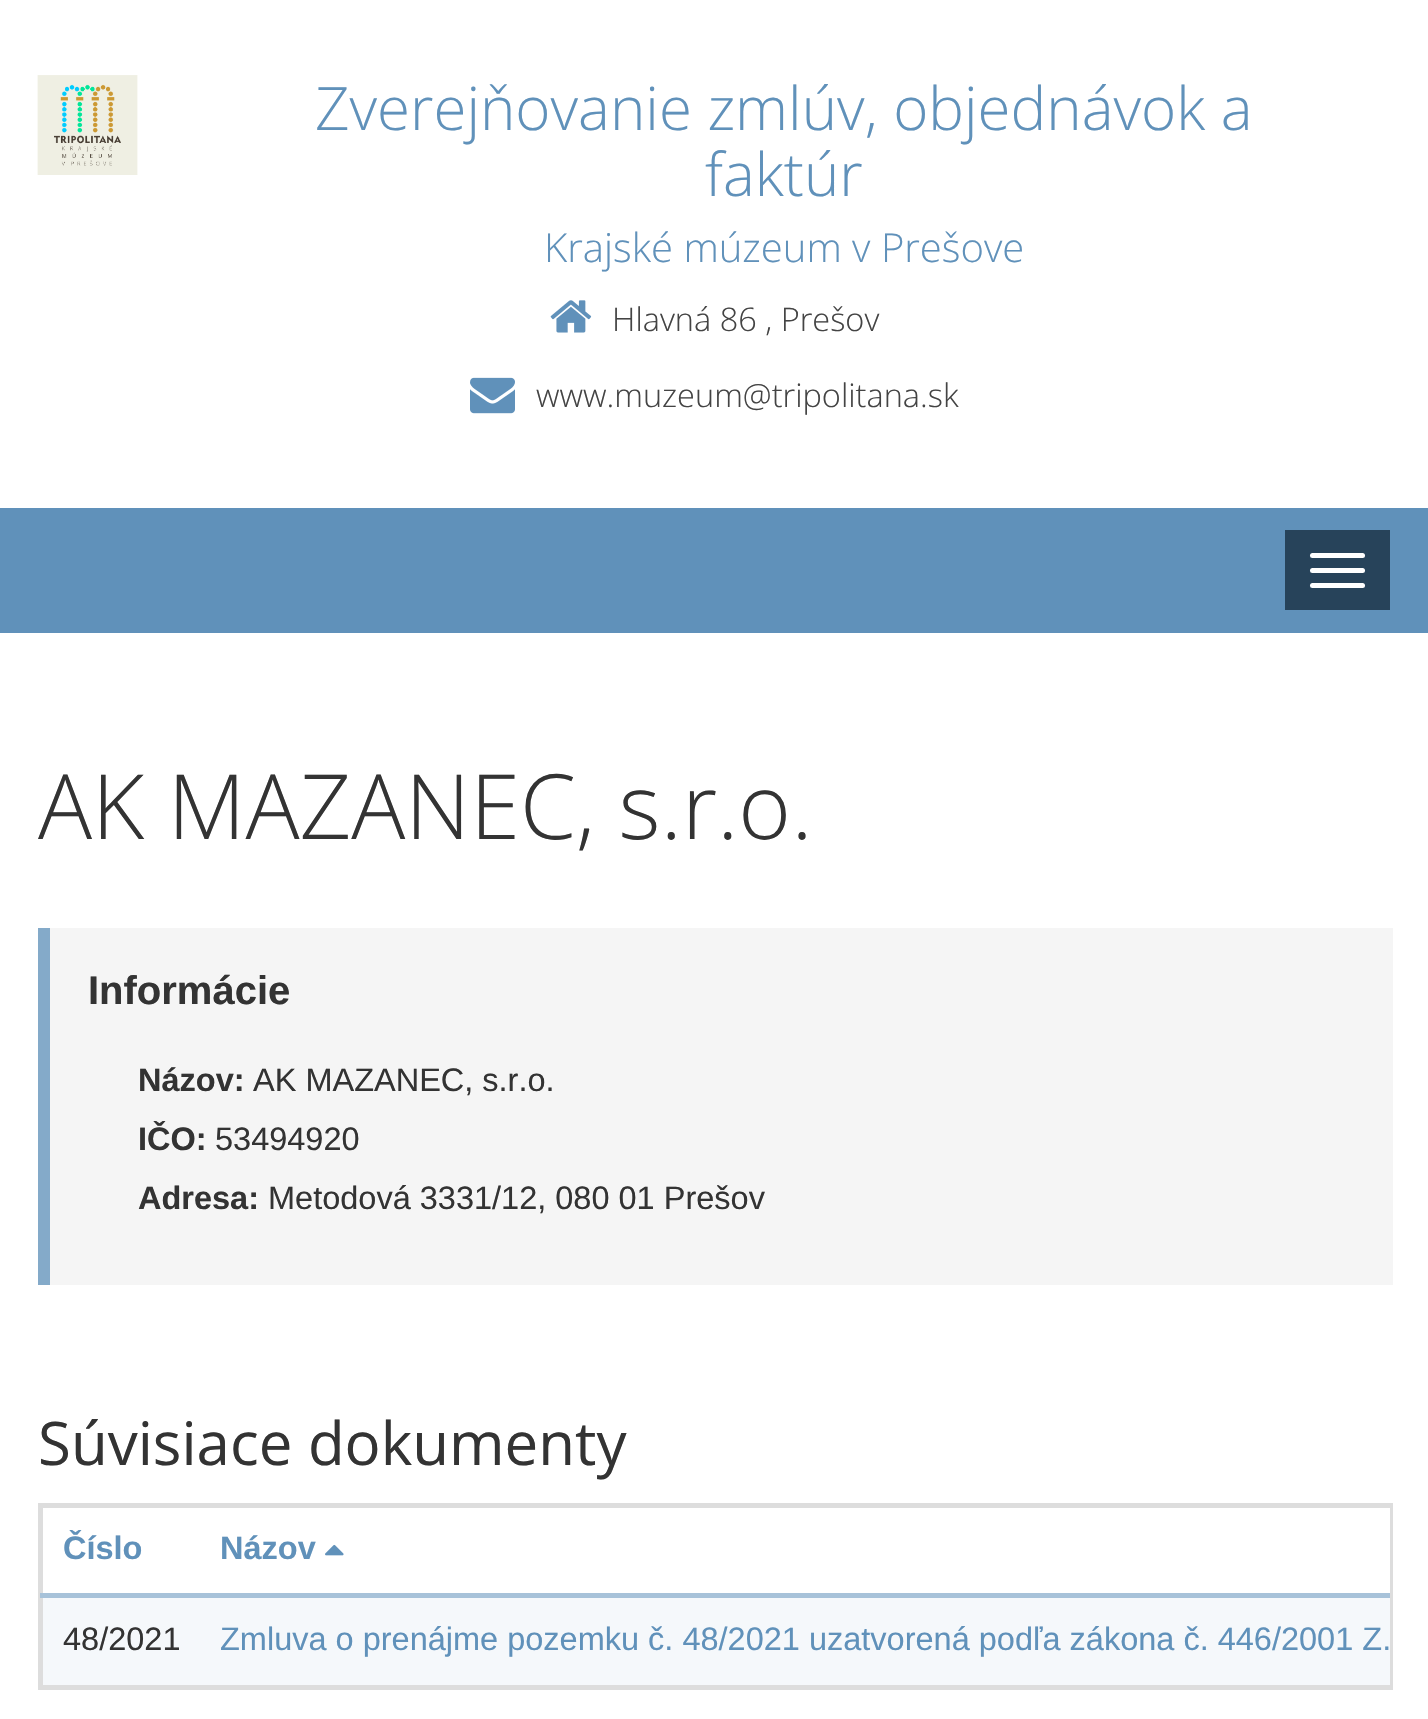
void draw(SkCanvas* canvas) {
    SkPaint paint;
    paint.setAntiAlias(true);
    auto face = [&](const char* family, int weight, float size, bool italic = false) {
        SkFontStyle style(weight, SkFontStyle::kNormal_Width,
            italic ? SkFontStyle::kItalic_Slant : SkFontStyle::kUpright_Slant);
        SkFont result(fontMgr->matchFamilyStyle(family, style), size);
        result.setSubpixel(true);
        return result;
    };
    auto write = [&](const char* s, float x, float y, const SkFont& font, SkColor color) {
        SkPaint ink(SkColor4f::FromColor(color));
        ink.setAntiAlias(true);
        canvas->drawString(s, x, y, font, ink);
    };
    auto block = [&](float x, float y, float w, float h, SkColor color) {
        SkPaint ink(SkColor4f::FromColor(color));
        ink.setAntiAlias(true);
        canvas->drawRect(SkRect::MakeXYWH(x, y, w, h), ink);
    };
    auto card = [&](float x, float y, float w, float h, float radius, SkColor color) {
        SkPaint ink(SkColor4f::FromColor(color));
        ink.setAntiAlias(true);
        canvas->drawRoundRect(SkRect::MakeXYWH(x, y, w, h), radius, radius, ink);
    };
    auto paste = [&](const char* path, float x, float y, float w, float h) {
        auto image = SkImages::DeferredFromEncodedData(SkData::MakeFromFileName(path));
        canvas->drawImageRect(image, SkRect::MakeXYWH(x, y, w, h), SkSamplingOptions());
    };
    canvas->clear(SK_ColorWHITE);
    paste("pic1.png", 37, 75, 101, 100);
    auto kFont1 = face("Open Sans", 300, 60);
    write("Zverejňovanie zmlúv, objednávok a", 315, 130, kFont1, SkColorSetRGB(96, 145, 186));
    write("faktúr", 705, 196, kFont1, SkColorSetRGB(96, 145, 186));
    auto kFont2 = face("Open Sans", 300, 40);
    write("Krajské múzeum v Prešove", 544, 262, kFont2, SkColorSetRGB(96, 145, 186));
    paste("pic2.png", 550, 300, 42, 33);
    auto kFont3 = face("Open Sans", 300, 32.5f);
    write("Hlavná 86 , Prešov", 612, 331, kFont3, SkColorSetRGB(68, 68, 68));
    paste("pic3.png", 470, 377, 45, 37);
    write("www.muzeum@tripolitana.sk", 536, 407, kFont3, SkColorSetRGB(68, 68, 68));
    block(0, 508, 1428, 125, SkColorSetRGB(96, 145, 186));
    block(1285, 530, 105, 80, SkColorSetRGB(39, 67, 90));
    card(1310, 553, 55, 5, 2.5f, SK_ColorWHITE);
    card(1310, 568, 55, 5, 2.5f, SK_ColorWHITE);
    card(1310, 583, 55, 5, 2.5f, SK_ColorWHITE);
    auto kFont4 = face("Open Sans", 300, 90);
    write("AK MAZANEC, s.r.o.", 38, 839, kFont4, SkColorSetRGB(51, 51, 51));
    block(50, 928, 1343, 357, SkColorSetRGB(245, 245, 245));
    block(38, 928, 12, 357, SkColorSetRGB(132, 170, 201));
    auto kFont5 = face("Liberation Sans", 700, 40);
    write("Informácie", 88, 1004, kFont5, SkColorSetRGB(51, 51, 51));
    auto kFont6 = face("Liberation Sans", 700, 32.5f);
    write("Názov:", 138, 1091, kFont6, SkColorSetRGB(51, 51, 51));
    auto kFont7 = face("Liberation Sans", 400, 32.5f);
    write("AK MAZANEC, s.r.o.", 253, 1091, kFont7, SkColorSetRGB(51, 51, 51));
    write("IČO:", 138, 1150, kFont6, SkColorSetRGB(51, 51, 51));
    write("53494920", 215, 1150, kFont7, SkColorSetRGB(51, 51, 51));
    write("Adresa:", 138, 1209, kFont6, SkColorSetRGB(51, 51, 51));
    write("Metodová 3331/12, 080 01 Prešov", 268, 1209, kFont7, SkColorSetRGB(51, 51, 51));
    auto kFont8 = face("Open Sans", 400, 60);
    write("Súvisiace dokumenty", 38, 1465, kFont8, SkColorSetRGB(51, 51, 51));
    paint.setStyle(SkPaint::kStroke_Style);
    paint.setStrokeWidth(3);
    paint.setColor(SkColorSetRGB(221, 221, 221));
    canvas->drawRect(SkRect::MakeXYWH(39.5f, 1504.5f, 1352, 184), paint);
    block(40, 1506, 1350, 2, SkColorSetRGB(221, 221, 221));
    block(40, 1685, 1350, 2, SkColorSetRGB(221, 221, 221));
    block(41, 1505, 2, 183, SkColorSetRGB(221, 221, 221));
    write("Číslo", 63, 1559, kFont6, SkColorSetRGB(96, 145, 186));
    block(40, 1593, 1350, 5, SkColorSetRGB(167, 194, 217));
    write("Názov", 220, 1559, kFont6, SkColorSetRGB(96, 145, 186));
    paste("pic4.png", 325, 1544, 19, 12);
    block(43, 1598, 1347, 87, SkColorSetRGB(245, 248, 251));
    write("48/2021", 63, 1650, kFont7, SkColorSetRGB(51, 51, 51));
    write("Zmluva o prenájme pozemku č. 48/2021 uzatvorená podľa zákona č. 446/2001 Z.", 220, 1650, kFont7, SkColorSetRGB(96, 145, 186));
}
